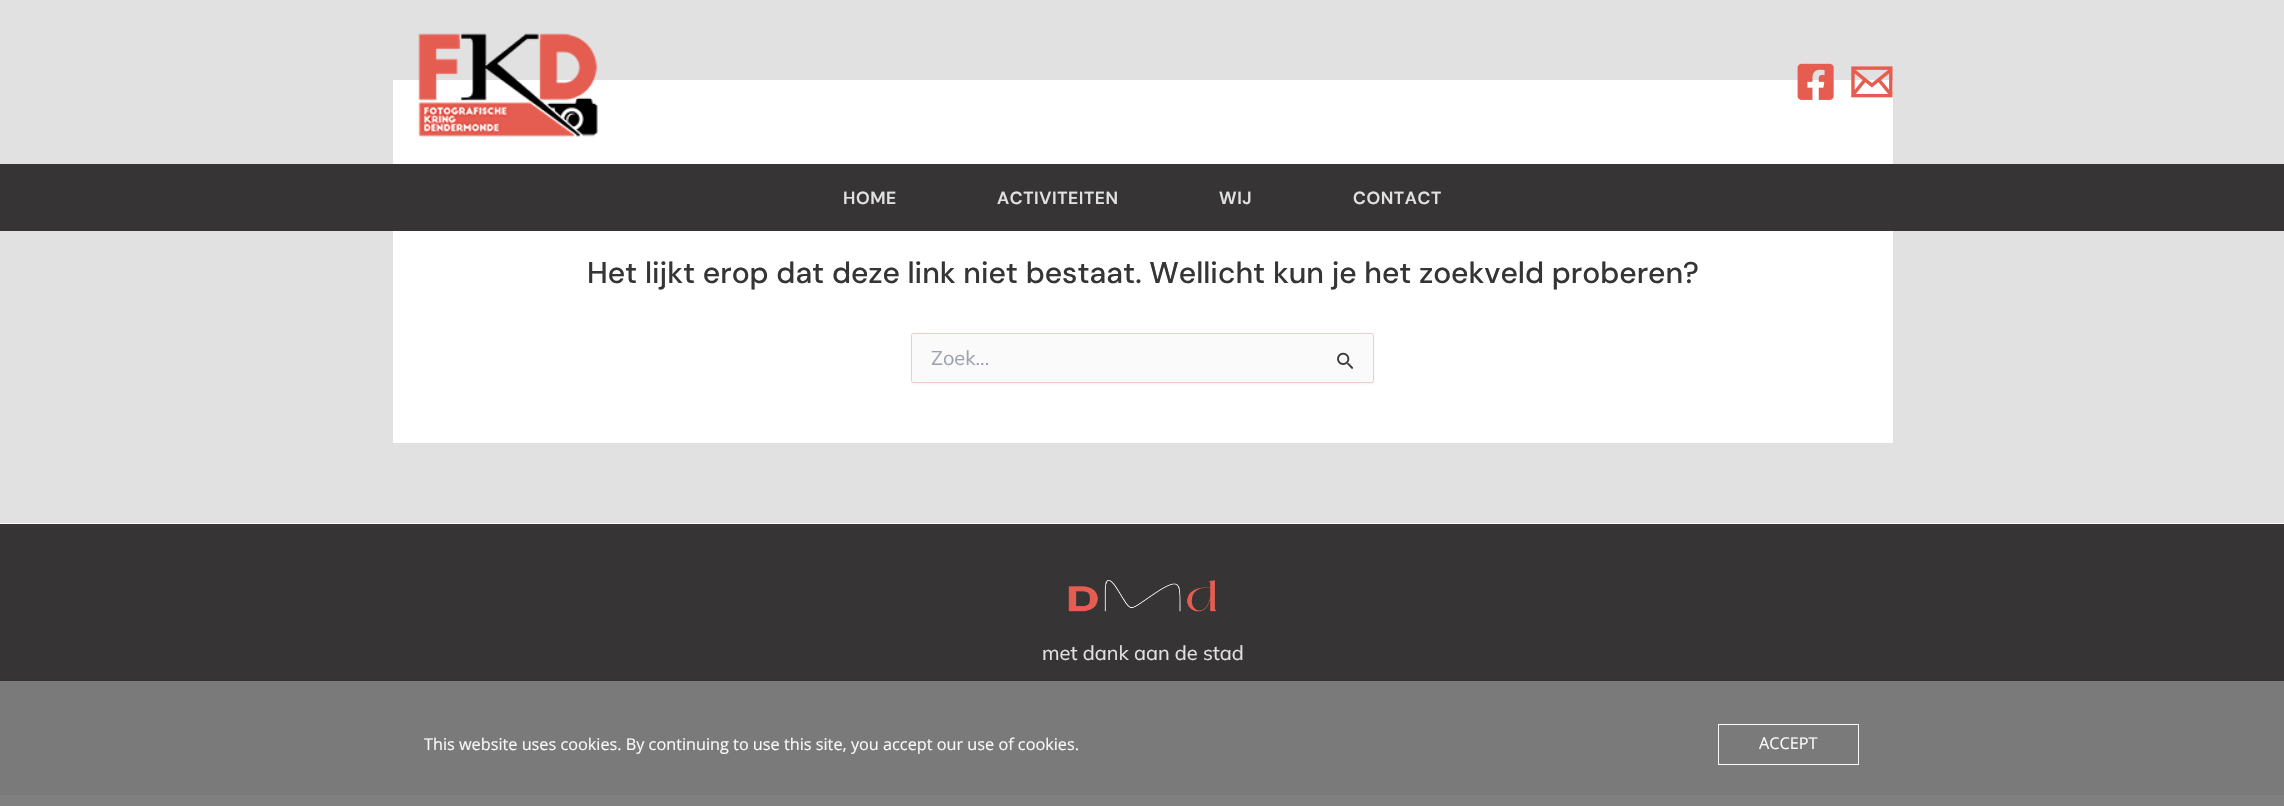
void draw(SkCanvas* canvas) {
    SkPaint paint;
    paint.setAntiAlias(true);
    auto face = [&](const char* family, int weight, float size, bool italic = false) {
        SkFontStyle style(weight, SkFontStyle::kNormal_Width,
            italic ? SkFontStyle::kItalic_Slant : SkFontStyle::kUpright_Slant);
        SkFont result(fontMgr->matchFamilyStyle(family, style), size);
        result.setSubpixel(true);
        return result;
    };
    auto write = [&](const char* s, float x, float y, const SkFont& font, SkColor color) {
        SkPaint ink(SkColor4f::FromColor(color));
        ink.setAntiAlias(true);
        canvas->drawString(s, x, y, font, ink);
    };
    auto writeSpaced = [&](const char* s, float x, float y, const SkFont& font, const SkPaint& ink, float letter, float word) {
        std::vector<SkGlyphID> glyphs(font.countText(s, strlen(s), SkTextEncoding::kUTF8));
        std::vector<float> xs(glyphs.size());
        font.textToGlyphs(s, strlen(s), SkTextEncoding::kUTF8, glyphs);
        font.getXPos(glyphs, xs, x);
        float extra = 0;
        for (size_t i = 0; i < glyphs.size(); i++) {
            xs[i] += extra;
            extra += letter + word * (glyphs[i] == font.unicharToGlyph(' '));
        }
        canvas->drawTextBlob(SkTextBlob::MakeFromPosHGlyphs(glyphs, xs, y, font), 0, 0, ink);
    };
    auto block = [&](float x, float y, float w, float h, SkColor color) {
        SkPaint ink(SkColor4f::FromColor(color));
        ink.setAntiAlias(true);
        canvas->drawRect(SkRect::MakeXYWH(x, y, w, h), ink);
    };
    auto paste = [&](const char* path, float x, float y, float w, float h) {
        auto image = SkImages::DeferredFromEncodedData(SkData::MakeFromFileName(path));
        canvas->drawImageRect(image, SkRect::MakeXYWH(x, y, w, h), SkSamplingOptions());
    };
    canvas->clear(SkColorSetRGB(225, 225, 225));
    block(393, 80, 1500, 363, SK_ColorWHITE);
    paste("pic1.png", 418, 33, 180, 104);
    paste("pic2.png", 1797, 63, 37, 37);
    paste("pic3.png", 1851, 66, 42, 32);
    block(0, 164, 2284, 67, SkColorSetRGB(54, 52, 52));
    auto kFont1 = face("DM Sans", 600, 17.5f);
    paint.setColor(SkColorSetRGB(225, 225, 225));
    writeSpaced("HOME", 843, 204, kFont1, paint, 0.6f, 0);
    writeSpaced("ACTIVITEITEN", 997, 204, kFont1, paint, 0.6f, 0);
    writeSpaced("WIJ", 1219, 204, kFont1, paint, 0.6f, 0);
    writeSpaced("CONTACT", 1353, 204, kFont1, paint, 0.6f, 0);
    auto kFont2 = face("DM Sans", 500, 30);
    write("Het lijkt erop dat deze link niet bestaat. Wellicht kun je het zoekveld proberen?", 587, 283, kFont2, SkColorSetRGB(54, 52, 52));
    paint.setColor(SkColorSetARGB(13, 0, 0, 0));
    paint.setMaskFilter(SkMaskFilter::MakeBlur(kNormal_SkBlurStyle, 1));
    canvas->drawRoundRect(SkRect::MakeXYWH(911, 334, 463, 50), 2.5f, 2.5f, paint);
    paint.setMaskFilter(nullptr);
    paint.setColor(SkColorSetRGB(250, 250, 250));
    canvas->drawRoundRect(SkRect::MakeXYWH(911.5f, 333.5f, 462, 49), 2, 2, paint);
    paint.setStyle(SkPaint::kStroke_Style);
    paint.setStrokeWidth(1);
    paint.setColor(SkColorSetRGB(241, 203, 198));
    canvas->drawRoundRect(SkRect::MakeXYWH(911.5f, 333.5f, 462, 49), 2, 2, paint);
    auto kFont3 = face("Mulish", 400, 20);
    write("Zoek...", 931, 365, kFont3, SkColorSetRGB(156, 163, 175));
    paste("pic4.png", 1337, 352, 16, 18);
    block(0, 524, 2284, 271, SkColorSetRGB(54, 52, 52));
    block(0, 523, 2284, 1, SK_ColorWHITE);
    paste("pic5.png", 1068, 580, 149, 32);
    write("met dank aan de stad", 1042, 660, kFont3, SkColorSetRGB(225, 225, 225));
    block(0, 795, 2284, 1, SkColorSetRGB(241, 203, 198));
    block(0, 681, 2284, 125, SkColorSetARGB(247, 124, 124, 124));
    auto kFont4 = face("Open Sans", 400, 16.25f);
    write("This website uses cookies. By continuing to use this site, you accept our use of cookies.", 424, 750, kFont4, SkColorSetRGB(249, 249, 249));
    paint.setColor(SkColorSetRGB(249, 249, 249));
    canvas->drawRect(SkRect::MakeXYWH(1718.5f, 724.5f, 140, 40), paint);
    write("ACCEPT", 1759, 749, kFont4, SkColorSetRGB(249, 249, 249));
}
